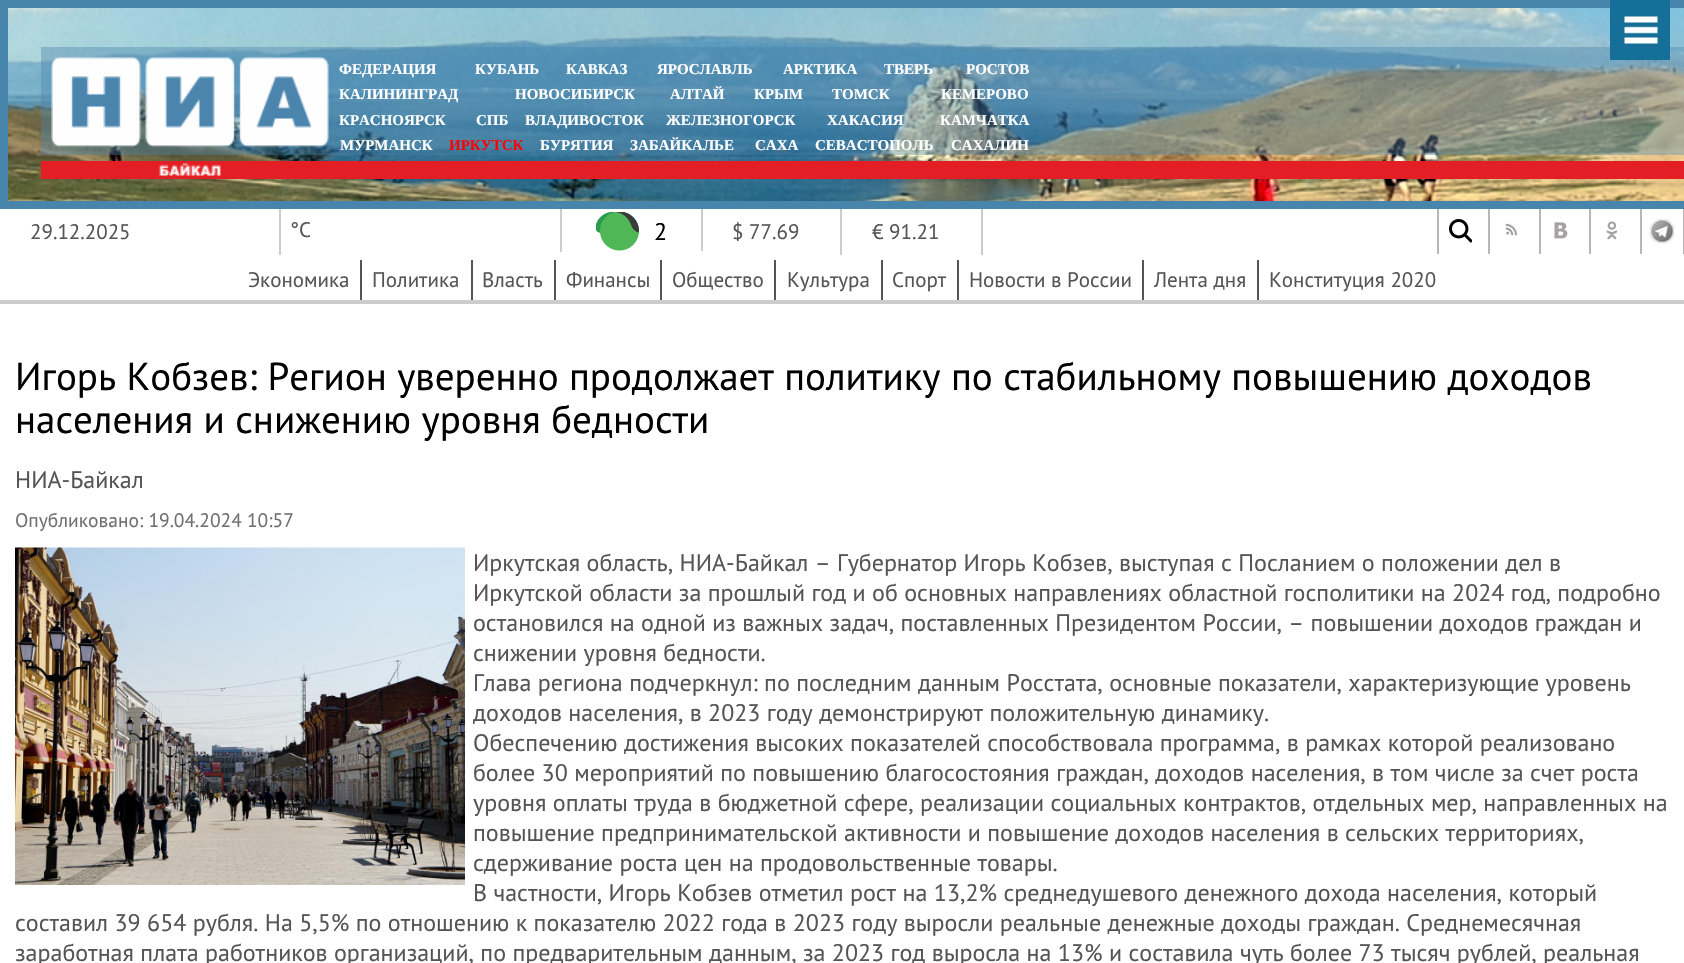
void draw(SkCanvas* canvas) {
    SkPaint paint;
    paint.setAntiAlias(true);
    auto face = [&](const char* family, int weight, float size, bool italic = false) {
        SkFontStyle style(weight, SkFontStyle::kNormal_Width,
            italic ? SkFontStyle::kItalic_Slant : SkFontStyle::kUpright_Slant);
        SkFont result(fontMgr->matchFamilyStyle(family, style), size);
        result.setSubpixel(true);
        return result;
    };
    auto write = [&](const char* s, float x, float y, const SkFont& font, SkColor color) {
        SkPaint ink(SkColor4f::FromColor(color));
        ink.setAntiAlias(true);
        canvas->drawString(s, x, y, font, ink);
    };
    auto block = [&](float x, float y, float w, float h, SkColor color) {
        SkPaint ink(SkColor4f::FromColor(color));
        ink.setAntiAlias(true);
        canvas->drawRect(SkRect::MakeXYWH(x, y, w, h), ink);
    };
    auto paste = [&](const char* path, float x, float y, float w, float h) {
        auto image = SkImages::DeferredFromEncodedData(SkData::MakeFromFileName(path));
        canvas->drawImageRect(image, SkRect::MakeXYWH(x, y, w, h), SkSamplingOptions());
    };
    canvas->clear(SK_ColorWHITE);
    paste("pic2.png", 8, 8, 1676, 193);
    block(0, 0, 1684, 8, SkColorSetRGB(72, 133, 172));
    block(41, 47, 1643, 108, SkColorSetARGB(102, 72, 133, 172));
    block(1610, 0, 60, 60, SkColorSetRGB(21, 111, 152));
    paste("pic1.png", 1624, 16, 34, 28);
    block(0, 201, 1684, 8, SkColorSetRGB(72, 133, 172));
    block(0, 0, 8, 209, SkColorSetRGB(72, 133, 172));
    block(41, 161, 1643, 18, SkColorSetRGB(227, 30, 36));
    paste("pic3.png", 51, 57, 278, 119);
    auto kFont1 = face("Liberation Serif", 700, 15);
    write("ФЕДЕРАЦИЯ", 339, 74, kFont1, SK_ColorWHITE);
    write("КУБАНЬ", 475, 74, kFont1, SK_ColorWHITE);
    write("КАВКАЗ", 566, 74, kFont1, SK_ColorWHITE);
    write("ЯРОСЛАВЛЬ", 657, 74, kFont1, SK_ColorWHITE);
    write("АРКТИКА", 783, 74, kFont1, SK_ColorWHITE);
    write("ТВЕРЬ", 884, 74, kFont1, SK_ColorWHITE);
    write("РОСТОВ", 966, 74, kFont1, SK_ColorWHITE);
    write("КАЛИНИНГРАД", 339, 99, kFont1, SK_ColorWHITE);
    write("НОВОСИБИРСК", 515, 99, kFont1, SK_ColorWHITE);
    write("АЛТАЙ", 670, 99, kFont1, SK_ColorWHITE);
    write("КРЫМ", 754, 99, kFont1, SK_ColorWHITE);
    write("ТОМСК", 832, 99, kFont1, SK_ColorWHITE);
    write("КЕМЕРОВО", 941, 99, kFont1, SK_ColorWHITE);
    write("КРАСНОЯРСК", 339, 125, kFont1, SK_ColorWHITE);
    write("СПБ", 476, 125, kFont1, SK_ColorWHITE);
    write("ВЛАДИВОСТОК", 525, 125, kFont1, SK_ColorWHITE);
    write("ЖЕЛЕЗНОГОРСК", 666, 125, kFont1, SK_ColorWHITE);
    write("ХАКАСИЯ", 827, 125, kFont1, SK_ColorWHITE);
    write("КАМЧАТКА", 940, 125, kFont1, SK_ColorWHITE);
    write("МУРМАНСК", 340, 150, kFont1, SK_ColorWHITE);
    write("ИРКУТСК", 449, 150, kFont1, SkColorSetRGB(255, 0, 0));
    write("БУРЯТИЯ", 540, 150, kFont1, SK_ColorWHITE);
    write("ЗАБАЙКАЛЬЕ", 630, 150, kFont1, SK_ColorWHITE);
    write("САХА", 755, 150, kFont1, SK_ColorWHITE);
    write("СЕВАСТОПОЛЬ", 815, 150, kFont1, SK_ColorWHITE);
    write("САХАЛИН", 951, 150, kFont1, SK_ColorWHITE);
    block(0, 300, 1684, 4, SkColorSetRGB(204, 204, 204));
    block(279, 209, 2, 46, SkColorSetRGB(204, 204, 204));
    auto kFont2 = face("PT Sans", 400, 21);
    write("29.12.2025", 30, 239, kFont2, SkColorSetRGB(85, 85, 85));
    block(560, 209, 2, 43, SkColorSetRGB(204, 204, 204));
    write("°C", 290, 237, kFont2, SkColorSetRGB(85, 85, 85));
    block(701, 209, 2, 42, SkColorSetRGB(204, 204, 204));
    paste("pic4.png", 596, 212, 43, 39);
    auto kFont3 = face("PT Sans", 400, 24);
    write("2", 654, 240, kFont3, SK_ColorBLACK);
    block(840, 209, 2, 46, SkColorSetRGB(204, 204, 204));
    write("$ 77.69", 732, 239, kFont2, SkColorSetRGB(85, 85, 85));
    block(981, 209, 2, 46, SkColorSetRGB(204, 204, 204));
    write("€ 91.21", 872, 239, kFont2, SkColorSetRGB(85, 85, 85));
    paste("pic5.png", 1449, 219, 23, 24);
    block(1437, 209, 2, 45, SkColorSetRGB(187, 181, 181));
    paste("pic6.png", 1505, 223, 12, 13);
    block(1488, 209, 2, 45, SkColorSetRGB(187, 181, 181));
    paste("pic7.png", 1554, 222, 14, 17);
    block(1539, 209, 2, 45, SkColorSetRGB(187, 181, 181));
    paste("pic8.png", 1606, 221, 12, 19);
    block(1589, 209, 2, 45, SkColorSetRGB(187, 181, 181));
    paste("pic9.png", 1649, 218, 26, 26);
    block(1683, 209, 1, 45, SkColorSetRGB(187, 181, 181));
    block(1640, 209, 2, 45, SkColorSetRGB(187, 181, 181));
    block(360, 260, 2, 40, SkColorSetRGB(85, 85, 85));
    write("Экономика", 248, 287, kFont2, SkColorSetRGB(85, 85, 85));
    block(471, 260, 2, 40, SkColorSetRGB(85, 85, 85));
    write("Политика", 372, 287, kFont2, SkColorSetRGB(85, 85, 85));
    block(554, 260, 2, 40, SkColorSetRGB(85, 85, 85));
    write("Власть", 482, 287, kFont2, SkColorSetRGB(85, 85, 85));
    block(660, 260, 2, 40, SkColorSetRGB(85, 85, 85));
    write("Финансы", 566, 287, kFont2, SkColorSetRGB(85, 85, 85));
    block(774, 260, 2, 40, SkColorSetRGB(85, 85, 85));
    write("Общество", 672, 287, kFont2, SkColorSetRGB(85, 85, 85));
    block(881, 260, 2, 40, SkColorSetRGB(85, 85, 85));
    write("Культура", 787, 287, kFont2, SkColorSetRGB(85, 85, 85));
    block(957, 260, 2, 40, SkColorSetRGB(85, 85, 85));
    write("Спорт", 892, 287, kFont2, SkColorSetRGB(85, 85, 85));
    block(1142, 260, 2, 40, SkColorSetRGB(85, 85, 85));
    write("Новости в России", 969, 287, kFont2, SkColorSetRGB(85, 85, 85));
    block(1257, 260, 2, 40, SkColorSetRGB(85, 85, 85));
    write("Лента дня", 1154, 287, kFont2, SkColorSetRGB(85, 85, 85));
    write("Конституция 2020", 1269, 287, kFont2, SkColorSetRGB(85, 85, 85));
    auto kFont4 = face("PT Sans", 400, 39);
    write("Игорь Кобзев: Регион уверенно продолжает политику по стабильному повышению доходов", 15, 390, kFont4, SK_ColorBLACK);
    write("населения и снижению уровня бедности", 15, 433, kFont4, SK_ColorBLACK);
    write("НИА-Байкал", 15, 488, kFont3, SkColorSetRGB(85, 85, 85));
    auto kFont5 = face("PT Sans", 400, 19.5f);
    write("Опубликовано: 19.04.2024 10:57", 15, 527, kFont5, SkColorSetRGB(113, 112, 112));
    paste("pic10.png", 15, 547, 450, 338);
    write("Иркутская область, НИА-Байкал – Губернатор Игорь Кобзев, выступая с Посланием о положении дел в", 473, 571, kFont3, SkColorSetRGB(85, 85, 85));
    write("Иркутской области за прошлый год и об основных направлениях областной госполитики на 2024 год, подробно", 473, 601, kFont3, SkColorSetRGB(85, 85, 85));
    write("остановился на одной из важных задач, поставленных Президентом России, – повышении доходов граждан и", 473, 631, kFont3, SkColorSetRGB(85, 85, 85));
    write("снижении уровня бедности.", 473, 661, kFont3, SkColorSetRGB(85, 85, 85));
    write("Глава региона подчеркнул: по последним данным Росстата, основные показатели, характеризующие уровень", 473, 691, kFont3, SkColorSetRGB(85, 85, 85));
    write("доходов населения, в 2023 году демонстрируют положительную динамику.", 473, 721, kFont3, SkColorSetRGB(85, 85, 85));
    write("Обеспечению достижения высоких показателей способствовала программа, в рамках которой реализовано", 473, 751, kFont3, SkColorSetRGB(85, 85, 85));
    write("более 30 мероприятий по повышению благосостояния граждан, доходов населения, в том числе за счет роста", 473, 781, kFont3, SkColorSetRGB(85, 85, 85));
    write("уровня оплаты труда в бюджетной сфере, реализации социальных контрактов, отдельных мер, направленных на", 473, 811, kFont3, SkColorSetRGB(85, 85, 85));
    write("повышение предпринимательской активности и повышение доходов населения в сельских территориях,", 473, 841, kFont3, SkColorSetRGB(85, 85, 85));
    write("сдерживание роста цен на продовольственные товары.", 473, 871, kFont3, SkColorSetRGB(85, 85, 85));
    write("В частности, Игорь Кобзев отметил рост на 13,2% среднедушевого денежного дохода населения, который", 473, 901, kFont3, SkColorSetRGB(85, 85, 85));
    write("составил 39 654 рубля. На 5,5% по отношению к показателю 2022 года в 2023 году выросли реальные денежные доходы граждан. Среднемесячная", 15, 931, kFont3, SkColorSetRGB(85, 85, 85));
    write("заработная плата работников организаций, по предварительным данным, за 2023 год выросла на 13% и составила чуть более 73 тысяч рублей, реальная", 15, 961, kFont3, SkColorSetRGB(85, 85, 85));
}
